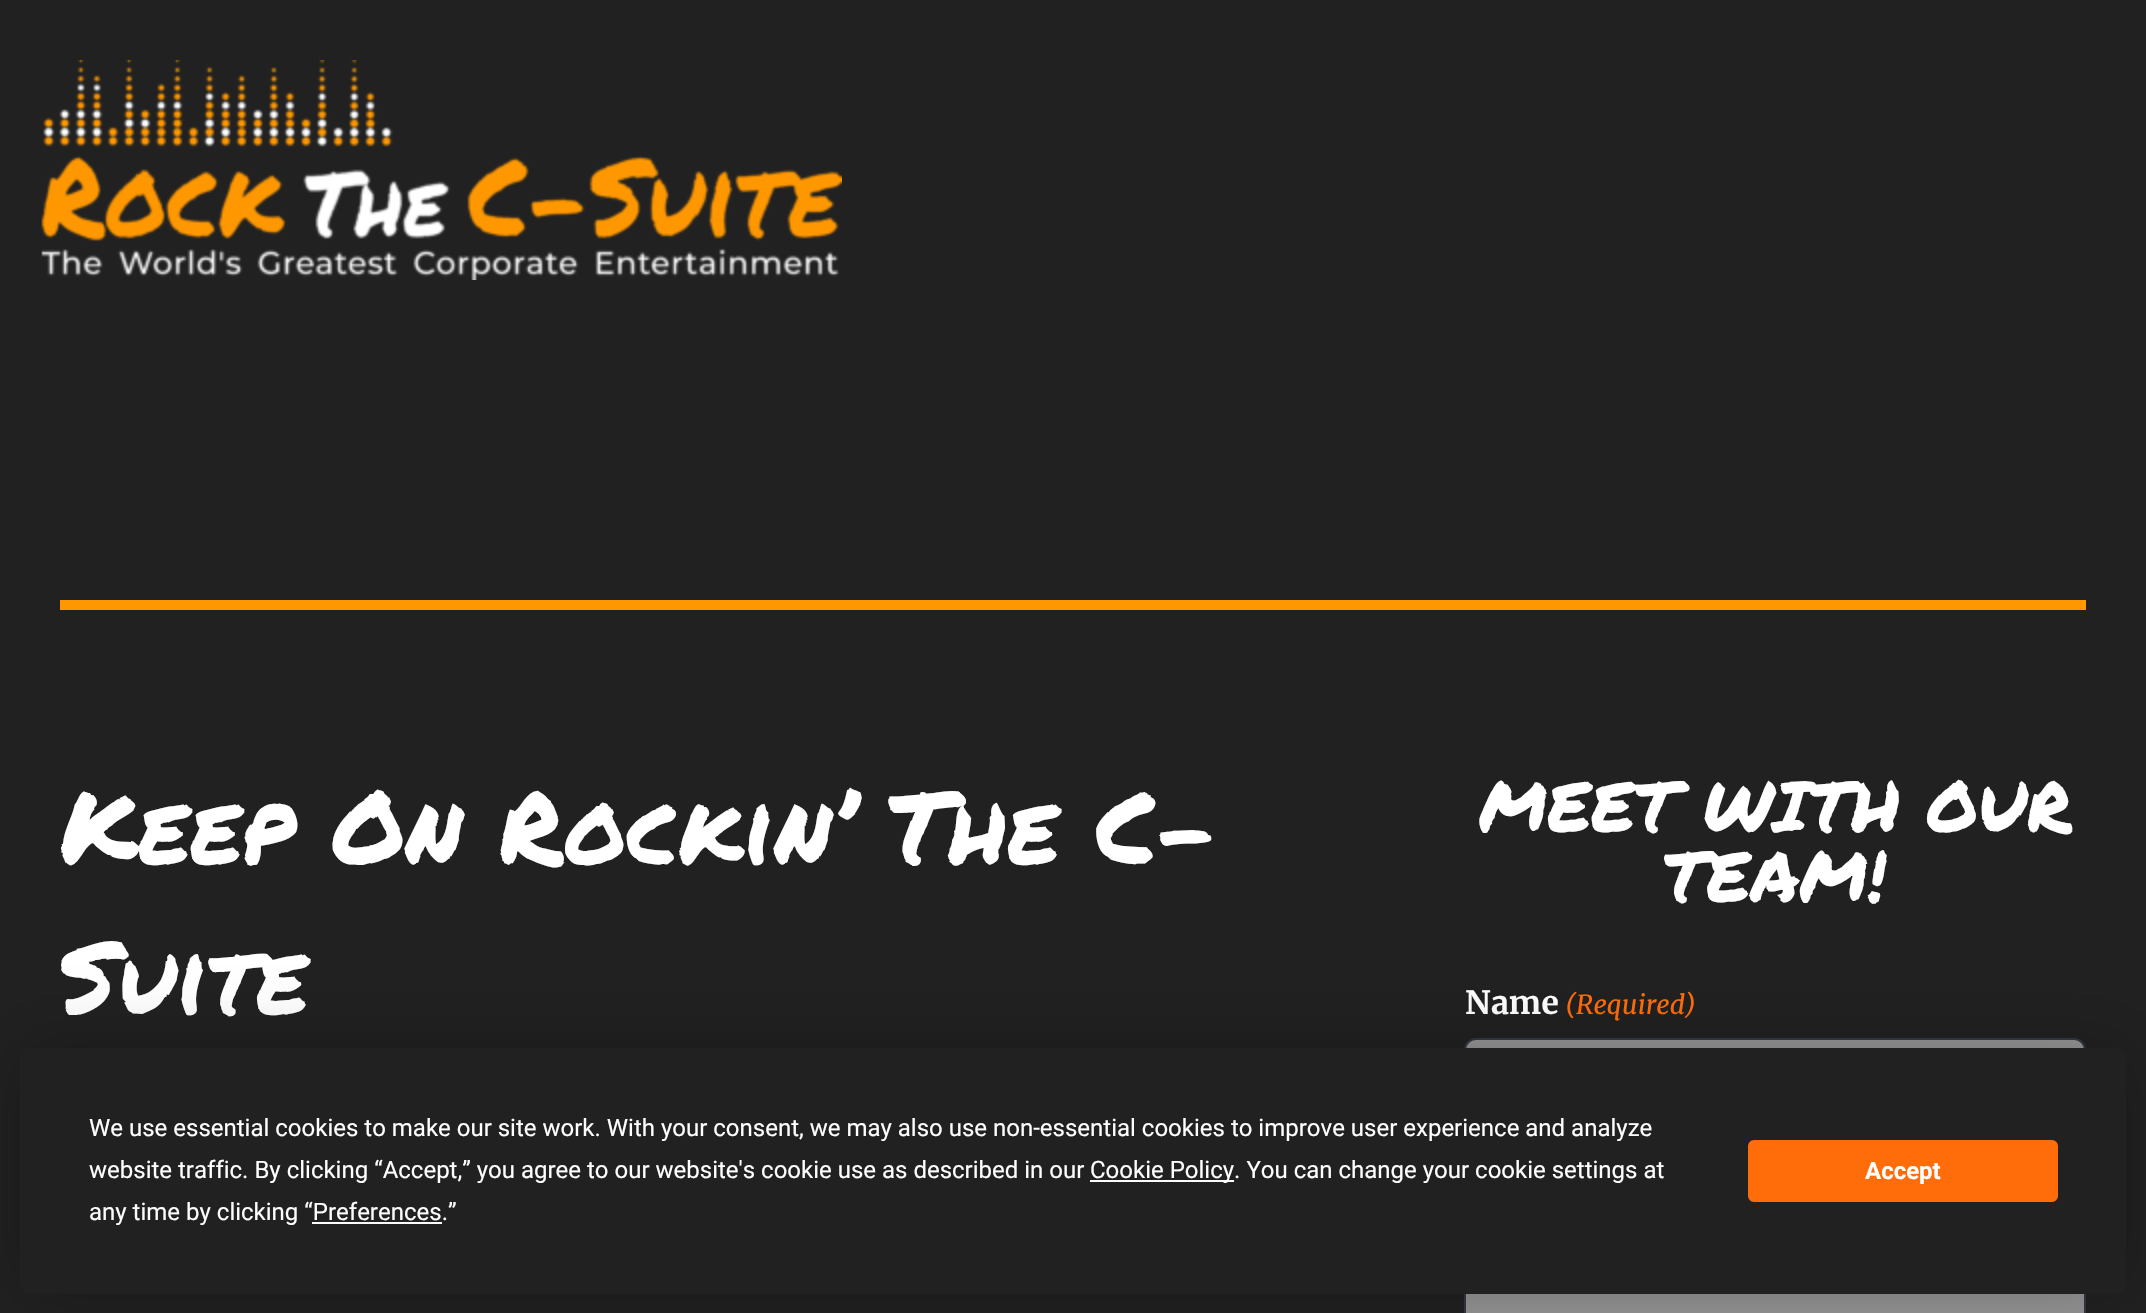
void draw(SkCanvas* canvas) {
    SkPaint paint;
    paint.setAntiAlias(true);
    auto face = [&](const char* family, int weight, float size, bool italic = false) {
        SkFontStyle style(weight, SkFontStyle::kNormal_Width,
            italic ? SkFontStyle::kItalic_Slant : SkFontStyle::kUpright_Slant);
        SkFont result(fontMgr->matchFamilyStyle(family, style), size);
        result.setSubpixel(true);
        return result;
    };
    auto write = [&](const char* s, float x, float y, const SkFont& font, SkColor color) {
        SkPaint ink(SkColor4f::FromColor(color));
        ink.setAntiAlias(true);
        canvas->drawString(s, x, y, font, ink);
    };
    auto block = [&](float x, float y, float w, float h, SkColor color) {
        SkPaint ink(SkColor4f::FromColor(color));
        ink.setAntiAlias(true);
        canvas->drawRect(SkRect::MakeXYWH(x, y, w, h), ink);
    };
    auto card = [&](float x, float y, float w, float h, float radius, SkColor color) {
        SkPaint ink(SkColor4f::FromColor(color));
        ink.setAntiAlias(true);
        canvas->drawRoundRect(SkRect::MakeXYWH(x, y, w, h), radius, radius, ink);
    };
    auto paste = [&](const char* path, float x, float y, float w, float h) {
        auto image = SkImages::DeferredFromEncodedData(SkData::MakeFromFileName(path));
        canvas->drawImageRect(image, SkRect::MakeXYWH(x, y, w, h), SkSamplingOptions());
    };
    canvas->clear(SkColorSetRGB(33, 33, 33));
    paste("pic1.png", 41, 60, 801, 220);
    block(60, 600, 2026, 10, SkColorSetRGB(255, 152, 0));
    auto kFont1 = face("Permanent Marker", 400, 100);
    write("Keep On Rockin’ The C-", 60, 864, kFont1, SK_ColorWHITE);
    write("Suite", 60, 1014, kFont1, SK_ColorWHITE);
    auto kFont2 = face("Permanent Marker", 400, 70);
    write("MEET WITH OUR", 1479, 832, kFont2, SK_ColorWHITE);
    write("TEAM!", 1664, 902, kFont2, SK_ColorWHITE);
    auto kFont3 = face("Merriweather", 700, 32);
    write("Name", 1465, 1014, kFont3, SK_ColorWHITE);
    auto kFont4 = face("Merriweather", 400, 26, true);
    write("(Required)", 1565, 1014, kFont4, SkColorSetRGB(255, 109, 10));
    paint.setColor(SkColorSetRGB(150, 150, 150));
    canvas->drawRoundRect(SkRect::MakeXYWH(1465, 1039, 620, 98), 11, 11, paint);
    paint.setStyle(SkPaint::kStroke_Style);
    paint.setStrokeWidth(2);
    paint.setColor(SkColorSetRGB(50, 56, 68));
    canvas->drawRoundRect(SkRect::MakeXYWH(1465, 1039, 620, 98), 11, 11, paint);
    block(1466, 1294, 618, 19, SkColorSetRGB(150, 150, 150));
    canvas->drawRect(SkRect::MakeXYWH(1465, 1239, 620, 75), paint);
    paint.setStyle(SkPaint::kFill_Style);
    paint.setColor(SkColorSetARGB(64, 0, 0, 0));
    paint.setMaskFilter(SkMaskFilter::MakeBlur(kNormal_SkBlurStyle, 35));
    canvas->drawRoundRect(SkRect::MakeXYWH(20, 1048, 2106, 246), 10, 10, paint);
    paint.setMaskFilter(nullptr);
    card(20, 1048, 2106, 246, 10, SkColorSetRGB(33, 33, 33));
    auto kFont5 = face("Roboto", 400, 24);
    write("We use essential cookies to make our site work. With your consent, we may also use non-essential cookies to improve user experience and analyze", 89, 1136, kFont5, SK_ColorWHITE);
    write("website traffic. By clicking “Accept,” you agree to our website's cookie use as described in our", 89, 1178, kFont5, SK_ColorWHITE);
    block(1090, 1180, 144, 2, SK_ColorWHITE);
    write("Cookie Policy. You can change your cookie settings at", 1090, 1178, kFont5, SK_ColorWHITE);
    write("any time by clicking “Preferences.”", 89, 1220, kFont5, SK_ColorWHITE);
    block(312, 1222, 130, 2, SK_ColorWHITE);
    paint.setColor(SkColorSetRGB(255, 109, 10));
    canvas->drawRoundRect(SkRect::MakeXYWH(1749, 1141, 308, 60), 5, 5, paint);
    paint.setStyle(SkPaint::kStroke_Style);
    canvas->drawRoundRect(SkRect::MakeXYWH(1749, 1141, 308, 60), 5, 5, paint);
    auto kFont6 = face("Roboto", 700, 24);
    write("Accept", 1865, 1179, kFont6, SK_ColorWHITE);
}
